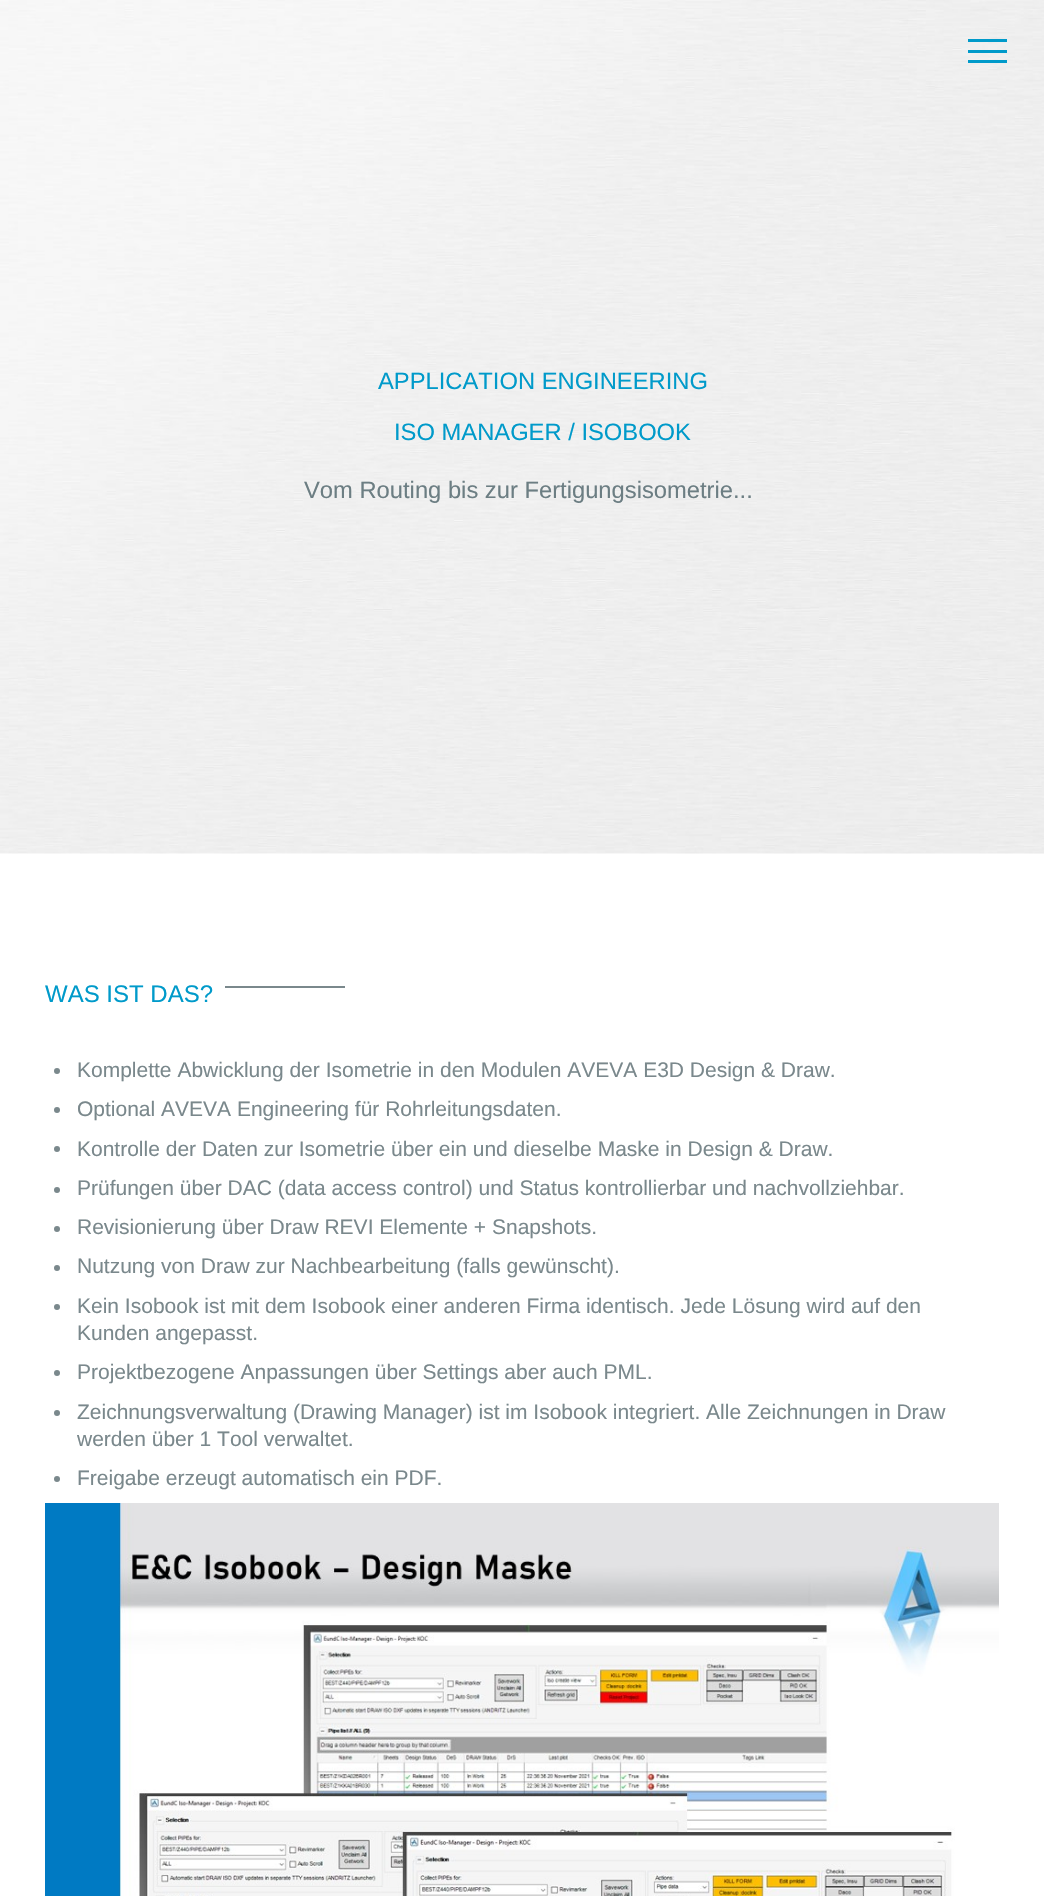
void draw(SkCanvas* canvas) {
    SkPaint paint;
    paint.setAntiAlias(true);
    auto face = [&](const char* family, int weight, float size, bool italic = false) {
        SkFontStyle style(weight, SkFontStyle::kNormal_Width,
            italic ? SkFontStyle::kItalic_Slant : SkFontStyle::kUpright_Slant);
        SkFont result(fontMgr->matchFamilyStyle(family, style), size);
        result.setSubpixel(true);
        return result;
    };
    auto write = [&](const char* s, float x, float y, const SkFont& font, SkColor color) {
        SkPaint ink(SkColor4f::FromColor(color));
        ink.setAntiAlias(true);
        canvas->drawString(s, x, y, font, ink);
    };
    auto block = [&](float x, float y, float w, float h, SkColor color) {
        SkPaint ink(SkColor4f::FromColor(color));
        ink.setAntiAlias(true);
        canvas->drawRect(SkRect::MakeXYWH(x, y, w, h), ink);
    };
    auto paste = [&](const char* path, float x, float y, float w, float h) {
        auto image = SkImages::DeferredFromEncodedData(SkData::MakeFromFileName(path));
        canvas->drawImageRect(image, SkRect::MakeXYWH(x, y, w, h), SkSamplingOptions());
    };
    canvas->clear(SK_ColorWHITE);
    paste("pic1.png", 0, 0, 1044, 854);
    block(968, 50, 39, 3, SkColorSetRGB(0, 154, 202));
    block(968, 39, 39, 3, SkColorSetRGB(0, 154, 202));
    block(968, 60, 39, 3, SkColorSetRGB(0, 154, 202));
    auto kFont1 = face("Liberation Sans", 400, 23.75f);
    write("APPLICATION ENGINEERING", 378, 389, kFont1, SkColorSetRGB(0, 154, 202));
    write("ISO MANAGER / ISOBOOK", 394, 440, kFont1, SkColorSetRGB(0, 154, 202));
    write("Vom Routing bis zur Fertigungsisometrie...", 304, 498, kFont1, SkColorSetRGB(108, 126, 131));
    auto kFont2 = face("Liberation Sans", 400, 24);
    write("WAS IST DAS?", 45, 1002, kFont2, SkColorSetRGB(0, 154, 202));
    block(225, 986, 120, 2, SkColorSetRGB(122, 136, 140));
    paint.setColor(SkColorSetRGB(122, 136, 140));
    canvas->drawCircle(57, 1071, 3, paint);
    auto kFont3 = face("Liberation Sans", 400, 21);
    write("Komplette Abwicklung der Isometrie in den Modulen AVEVA E3D Design & Draw.", 77, 1077, kFont3, SkColorSetRGB(122, 136, 140));
    canvas->drawCircle(57, 1110, 3, paint);
    write("Optional AVEVA Engineering für Rohrleitungsdaten.", 77, 1116, kFont3, SkColorSetRGB(122, 136, 140));
    canvas->drawCircle(57, 1149, 3, paint);
    write("Kontrolle der Daten zur Isometrie über ein und dieselbe Maske in Design & Draw.", 77, 1156, kFont3, SkColorSetRGB(122, 136, 140));
    canvas->drawCircle(57, 1190, 3, paint);
    write("Prüfungen über DAC (data access control) und Status kontrollierbar und nachvollziehbar.", 77, 1195, kFont3, SkColorSetRGB(122, 136, 140));
    canvas->drawCircle(57, 1229, 3, paint);
    write("Revisionierung über Draw REVI Elemente + Snapshots.", 77, 1234, kFont3, SkColorSetRGB(122, 136, 140));
    canvas->drawCircle(57, 1268, 3, paint);
    write("Nutzung von Draw zur Nachbearbeitung (falls gewünscht).", 77, 1273, kFont3, SkColorSetRGB(122, 136, 140));
    canvas->drawCircle(57, 1307, 3, paint);
    write("Kein Isobook ist mit dem Isobook einer anderen Firma identisch. Jede Lösung wird auf den", 77, 1313, kFont3, SkColorSetRGB(122, 136, 140));
    write("Kunden angepasst.", 77, 1340, kFont3, SkColorSetRGB(122, 136, 140));
    canvas->drawCircle(57, 1373, 3, paint);
    write("Projektbezogene Anpassungen über Settings aber auch PML.", 77, 1379, kFont3, SkColorSetRGB(122, 136, 140));
    canvas->drawCircle(57, 1413, 3, paint);
    write("Zeichnungsverwaltung (Drawing Manager) ist im Isobook integriert. Alle Zeichnungen in Draw", 77, 1419, kFont3, SkColorSetRGB(122, 136, 140));
    write("werden über 1 Tool verwaltet.", 77, 1446, kFont3, SkColorSetRGB(122, 136, 140));
    canvas->drawCircle(57, 1479, 3, paint);
    write("Freigabe erzeugt automatisch ein PDF.", 77, 1485, kFont3, SkColorSetRGB(122, 136, 140));
    paste("pic2.png", 45, 1503, 954, 393);
}
